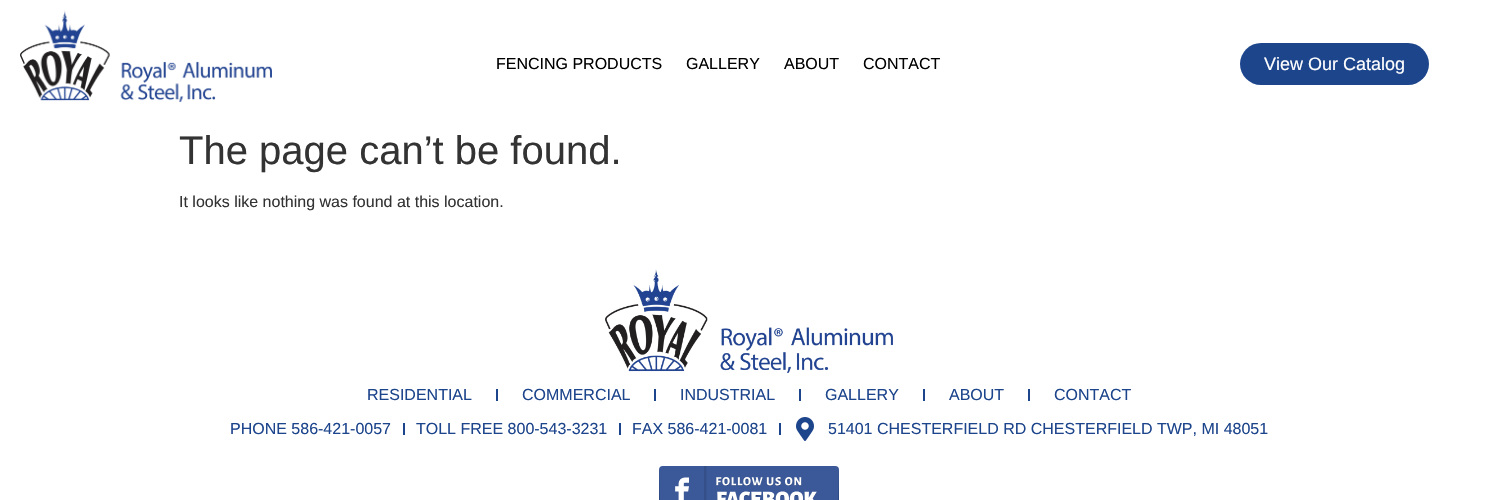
void draw(SkCanvas* canvas) {
    SkPaint paint;
    paint.setAntiAlias(true);
    auto face = [&](const char* family, int weight, float size, bool italic = false) {
        SkFontStyle style(weight, SkFontStyle::kNormal_Width,
            italic ? SkFontStyle::kItalic_Slant : SkFontStyle::kUpright_Slant);
        SkFont result(fontMgr->matchFamilyStyle(family, style), size);
        result.setSubpixel(true);
        return result;
    };
    auto write = [&](const char* s, float x, float y, const SkFont& font, SkColor color) {
        SkPaint ink(SkColor4f::FromColor(color));
        ink.setAntiAlias(true);
        canvas->drawString(s, x, y, font, ink);
    };
    auto block = [&](float x, float y, float w, float h, SkColor color) {
        SkPaint ink(SkColor4f::FromColor(color));
        ink.setAntiAlias(true);
        canvas->drawRect(SkRect::MakeXYWH(x, y, w, h), ink);
    };
    auto card = [&](float x, float y, float w, float h, float radius, SkColor color) {
        SkPaint ink(SkColor4f::FromColor(color));
        ink.setAntiAlias(true);
        canvas->drawRoundRect(SkRect::MakeXYWH(x, y, w, h), radius, radius, ink);
    };
    auto paste = [&](const char* path, float x, float y, float w, float h) {
        auto image = SkImages::DeferredFromEncodedData(SkData::MakeFromFileName(path));
        canvas->drawImageRect(image, SkRect::MakeXYWH(x, y, w, h), SkSamplingOptions());
    };
    canvas->clear(SK_ColorWHITE);
    paste("pic1.png", 20, 10, 252, 92);
    auto kFont1 = face("Liberation Sans", 400, 16);
    write("FENCING PRODUCTS", 496, 69, kFont1, SK_ColorBLACK);
    write("GALLERY", 686, 69, kFont1, SK_ColorBLACK);
    write("ABOUT", 784, 69, kFont1, SK_ColorBLACK);
    write("CONTACT", 863, 69, kFont1, SK_ColorBLACK);
    card(1240, 43, 189, 42, 21, SkColorSetRGB(29, 69, 140));
    auto kFont2 = face("Liberation Sans", 400, 18);
    write("View Our Catalog", 1264, 70, kFont2, SK_ColorWHITE);
    auto kFont3 = face("Liberation Sans", 400, 40);
    write("The page can’t be found.", 179, 164, kFont3, SkColorSetRGB(51, 51, 51));
    write("It looks like nothing was found at this location.", 179, 207, kFont1, SkColorSetRGB(51, 51, 51));
    paste("pic2.png", 605, 269, 288, 104);
    write("RESIDENTIAL", 367, 400, kFont1, SkColorSetRGB(29, 69, 140));
    block(496, 389, 2, 12, SkColorSetRGB(29, 69, 140));
    write("COMMERCIAL", 522, 400, kFont1, SkColorSetRGB(29, 69, 140));
    block(654, 389, 2, 12, SkColorSetRGB(29, 69, 140));
    write("INDUSTRIAL", 680, 400, kFont1, SkColorSetRGB(29, 69, 140));
    block(799, 389, 2, 12, SkColorSetRGB(29, 69, 140));
    write("GALLERY", 825, 400, kFont1, SkColorSetRGB(29, 69, 140));
    block(923, 389, 2, 12, SkColorSetRGB(29, 69, 140));
    write("ABOUT", 949, 400, kFont1, SkColorSetRGB(29, 69, 140));
    block(1028, 389, 2, 12, SkColorSetRGB(29, 69, 140));
    write("CONTACT", 1054, 400, kFont1, SkColorSetRGB(29, 69, 140));
    write("PHONE 586-421-0057", 230, 434, kFont1, SkColorSetRGB(29, 69, 140));
    block(403, 423, 2, 12, SkColorSetRGB(29, 69, 140));
    write("TOLL FREE 800-543-3231", 416, 434, kFont1, SkColorSetRGB(29, 69, 140));
    block(619, 423, 2, 12, SkColorSetRGB(29, 69, 140));
    write("FAX 586-421-0081", 632, 434, kFont1, SkColorSetRGB(29, 69, 140));
    block(779, 423, 2, 12, SkColorSetRGB(29, 69, 140));
    paste("pic3.png", 796, 417, 18, 24);
    write("51401 CHESTERFIELD RD CHESTERFIELD TWP, MI 48051", 828, 434, kFont1, SkColorSetRGB(29, 69, 140));
    paste("pic4.png", 659, 466, 180, 34);
}
